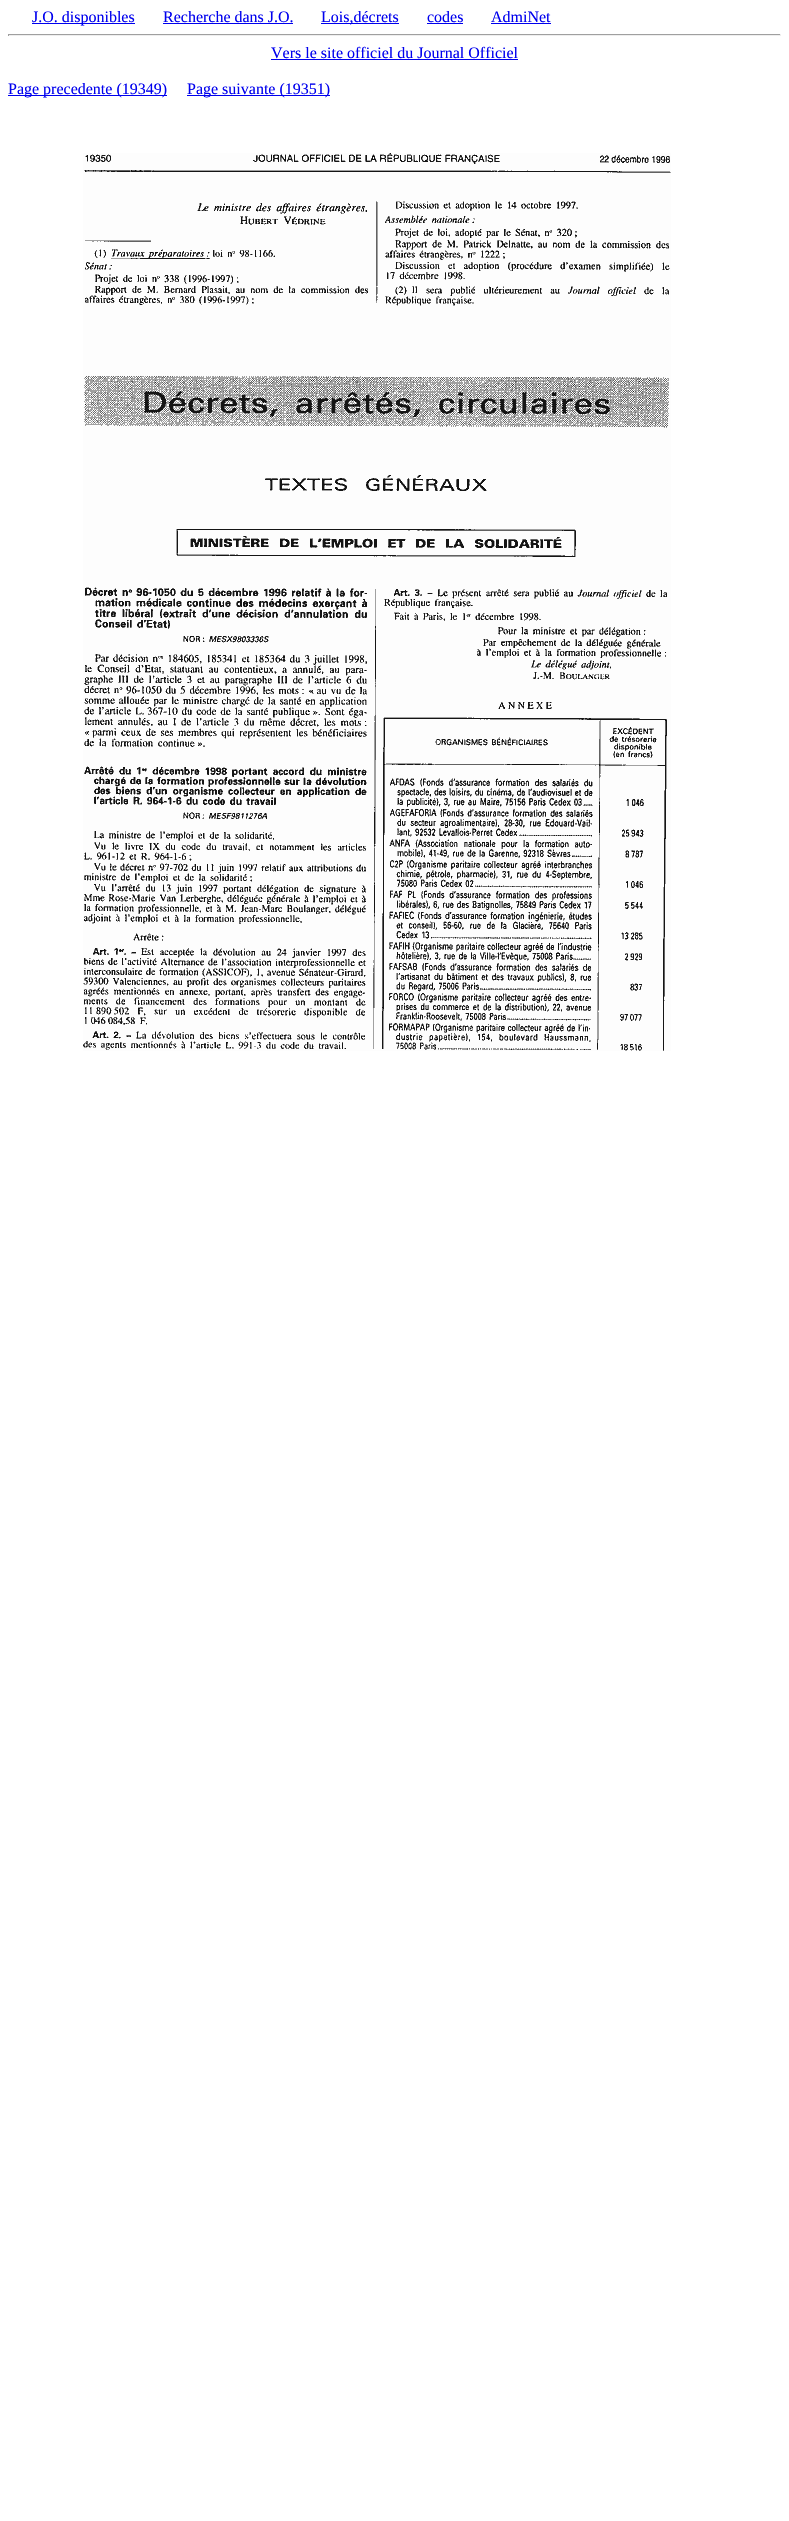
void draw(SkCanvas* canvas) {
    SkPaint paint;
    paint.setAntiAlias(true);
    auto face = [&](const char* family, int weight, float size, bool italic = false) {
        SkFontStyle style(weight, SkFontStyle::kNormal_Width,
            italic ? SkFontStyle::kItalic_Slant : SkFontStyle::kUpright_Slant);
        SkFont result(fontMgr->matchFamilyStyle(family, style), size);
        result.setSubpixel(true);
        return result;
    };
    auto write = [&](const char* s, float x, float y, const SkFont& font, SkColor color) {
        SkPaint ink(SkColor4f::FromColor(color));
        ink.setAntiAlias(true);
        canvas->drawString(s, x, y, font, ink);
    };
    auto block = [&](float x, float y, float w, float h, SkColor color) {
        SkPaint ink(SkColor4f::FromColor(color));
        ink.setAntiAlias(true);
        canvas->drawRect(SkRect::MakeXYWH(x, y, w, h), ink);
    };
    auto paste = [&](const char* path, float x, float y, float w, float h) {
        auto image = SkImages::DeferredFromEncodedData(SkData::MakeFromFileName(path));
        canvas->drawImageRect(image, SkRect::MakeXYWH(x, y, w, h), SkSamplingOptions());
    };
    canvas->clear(SK_ColorWHITE);
    block(32, 23, 103, 1, SkColorSetRGB(0, 0, 238));
    auto kFont1 = face("Liberation Serif", 400, 16);
    write("J.O. disponibles", 32, 22, kFont1, SkColorSetRGB(0, 0, 238));
    write("Recherche dans J.O.", 163, 22, kFont1, SkColorSetRGB(0, 0, 238));
    block(163, 23, 130, 1, SkColorSetRGB(0, 0, 238));
    block(321, 23, 78, 1, SkColorSetRGB(0, 0, 238));
    write("Lois,décrets", 321, 22, kFont1, SkColorSetRGB(0, 0, 238));
    write("codes", 427, 22, kFont1, SkColorSetRGB(0, 0, 238));
    block(427, 23, 36, 1, SkColorSetRGB(0, 0, 238));
    write("AdmiNet", 491, 22, kFont1, SkColorSetRGB(0, 0, 238));
    block(491, 23, 60, 1, SkColorSetRGB(0, 0, 238));
    block(8, 34, 773, 1, SkColorSetRGB(159, 159, 159));
    block(780, 34, 1, 2, SkColorSetRGB(238, 238, 238));
    block(8, 35, 773, 1, SkColorSetRGB(238, 238, 238));
    block(8, 34, 1, 2, SkColorSetRGB(159, 159, 159));
    write("Vers le site officiel du Journal Officiel", 271, 58, kFont1, SkColorSetRGB(0, 0, 238));
    block(271, 59, 247, 1, SkColorSetRGB(0, 0, 238));
    block(8, 95, 159, 1, SkColorSetRGB(0, 0, 238));
    write("Page precedente (19349)", 8, 94, kFont1, SkColorSetRGB(0, 0, 238));
    block(187, 95, 143, 1, SkColorSetRGB(0, 0, 238));
    write("Page suivante (19351)", 187, 94, kFont1, SkColorSetRGB(0, 0, 238));
    paste("pic1.png", 83, 153, 588, 898);
}
